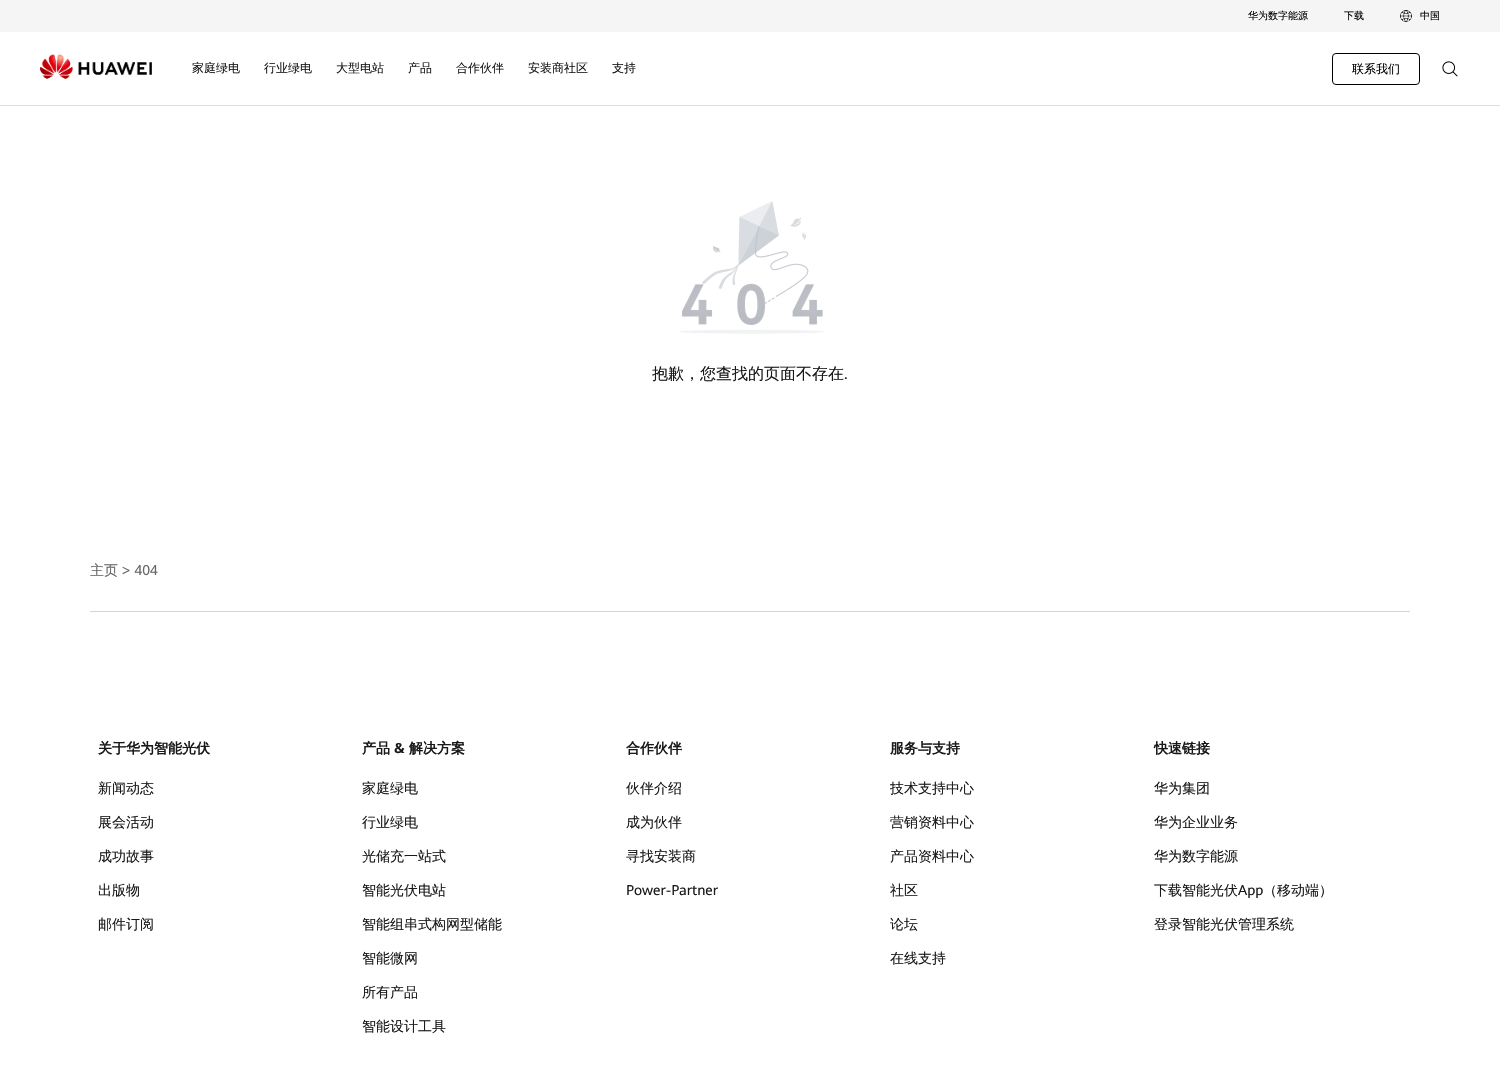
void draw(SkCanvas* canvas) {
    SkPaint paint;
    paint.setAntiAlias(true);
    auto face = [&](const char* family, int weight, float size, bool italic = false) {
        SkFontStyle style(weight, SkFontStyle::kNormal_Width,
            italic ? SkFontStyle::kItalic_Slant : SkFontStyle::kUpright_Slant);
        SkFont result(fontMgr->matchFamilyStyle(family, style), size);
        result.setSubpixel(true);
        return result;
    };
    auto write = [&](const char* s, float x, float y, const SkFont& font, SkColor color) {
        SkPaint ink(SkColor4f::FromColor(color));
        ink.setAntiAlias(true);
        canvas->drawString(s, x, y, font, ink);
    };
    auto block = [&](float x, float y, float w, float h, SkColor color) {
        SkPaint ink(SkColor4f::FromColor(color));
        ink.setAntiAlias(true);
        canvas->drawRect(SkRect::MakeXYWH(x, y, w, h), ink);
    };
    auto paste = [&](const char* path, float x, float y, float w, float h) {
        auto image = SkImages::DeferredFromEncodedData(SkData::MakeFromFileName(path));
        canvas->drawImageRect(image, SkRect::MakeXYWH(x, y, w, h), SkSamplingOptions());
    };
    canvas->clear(SK_ColorWHITE);
    block(0, 0, 1500, 32, SkColorSetRGB(245, 245, 245));
    auto kFont1 = face("WenQuanYi Zen Hei", 500, 10);
    write("华为数字能源", 1248, 19, kFont1, SK_ColorBLACK);
    write("下载", 1344, 19, kFont1, SK_ColorBLACK);
    paste("pic1.png", 1400, 10, 12, 12);
    write("中国", 1420, 19, kFont1, SK_ColorBLACK);
    block(0, 105, 1500, 1, SkColorSetRGB(222, 222, 222));
    paste("pic2.png", 40, 54, 112, 25);
    auto kFont2 = face("WenQuanYi Zen Hei", 500, 12);
    write("家庭绿电", 192, 72, kFont2, SkColorSetRGB(25, 25, 25));
    write("行业绿电", 264, 72, kFont2, SkColorSetRGB(25, 25, 25));
    write("大型电站", 336, 72, kFont2, SkColorSetRGB(25, 25, 25));
    write("产品", 408, 72, kFont2, SkColorSetRGB(25, 25, 25));
    write("合作伙伴", 456, 72, kFont2, SkColorSetRGB(25, 25, 25));
    write("安装商社区", 528, 72, kFont2, SkColorSetRGB(25, 25, 25));
    write("支持", 612, 72, kFont2, SkColorSetRGB(25, 25, 25));
    paint.setStyle(SkPaint::kStroke_Style);
    paint.setStrokeWidth(1);
    paint.setColor(SK_ColorBLACK);
    canvas->drawRoundRect(SkRect::MakeXYWH(1332.5f, 53.5f, 87, 31), 3.5f, 3.5f, paint);
    write("联系我们", 1352, 73, kFont2, SK_ColorBLACK);
    paste("pic3.png", 1442, 61, 16, 16);
    paste("pic4.png", 679, 201, 146, 133);
    auto kFont3 = face("WenQuanYi Zen Hei", 500, 16);
    write("抱歉，您查找的页面不存在", 652, 379, kFont3, SkColorSetRGB(25, 25, 25));
    auto kFont4 = face("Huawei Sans", 400, 16);
    write(".", 844, 379, kFont4, SkColorSetRGB(25, 25, 25));
    block(90, 611, 1320, 1, SkColorSetRGB(213, 213, 213));
    auto kFont5 = face("WenQuanYi Zen Hei", 500, 14);
    write("主页", 90, 575, kFont5, SkColorSetRGB(102, 102, 102));
    auto kFont6 = face("Huawei Sans", 400, 14);
    write("> 404", 122, 575, kFont6, SkColorSetRGB(102, 102, 102));
    auto kFont7 = face("WenQuanYi Zen Hei", 700, 14);
    write("关于华为智能光伏", 98, 753, kFont7, SkColorSetRGB(25, 25, 25));
    write("新闻动态", 98, 793, kFont5, SkColorSetRGB(25, 25, 25));
    write("展会活动", 98, 827, kFont5, SkColorSetRGB(25, 25, 25));
    write("成功故事", 98, 861, kFont5, SkColorSetRGB(25, 25, 25));
    write("出版物", 98, 895, kFont5, SkColorSetRGB(25, 25, 25));
    write("邮件订阅", 98, 929, kFont5, SkColorSetRGB(25, 25, 25));
    write("产品", 362, 753, kFont7, SkColorSetRGB(25, 25, 25));
    auto kFont8 = face("Huawei Sans", 700, 14);
    write("&", 394, 753, kFont8, SkColorSetRGB(25, 25, 25));
    write("解决方案", 409, 753, kFont7, SkColorSetRGB(25, 25, 25));
    write("家庭绿电", 362, 793, kFont5, SkColorSetRGB(25, 25, 25));
    write("行业绿电", 362, 827, kFont5, SkColorSetRGB(25, 25, 25));
    write("光储充一站式", 362, 861, kFont5, SkColorSetRGB(25, 25, 25));
    write("智能光伏电站", 362, 895, kFont5, SkColorSetRGB(25, 25, 25));
    write("智能组串式构网型储能", 362, 929, kFont5, SkColorSetRGB(25, 25, 25));
    write("智能微网", 362, 963, kFont5, SkColorSetRGB(25, 25, 25));
    write("所有产品", 362, 997, kFont5, SkColorSetRGB(25, 25, 25));
    write("智能设计工具", 362, 1031, kFont5, SkColorSetRGB(25, 25, 25));
    write("合作伙伴", 626, 753, kFont7, SkColorSetRGB(25, 25, 25));
    write("伙伴介绍", 626, 793, kFont5, SkColorSetRGB(25, 25, 25));
    write("成为伙伴", 626, 827, kFont5, SkColorSetRGB(25, 25, 25));
    write("寻找安装商", 626, 861, kFont5, SkColorSetRGB(25, 25, 25));
    write("Power-Partner", 626, 895, kFont6, SkColorSetRGB(25, 25, 25));
    write("服务与支持", 890, 753, kFont7, SkColorSetRGB(25, 25, 25));
    write("技术支持中心", 890, 793, kFont5, SkColorSetRGB(25, 25, 25));
    write("营销资料中心", 890, 827, kFont5, SkColorSetRGB(25, 25, 25));
    write("产品资料中心", 890, 861, kFont5, SkColorSetRGB(25, 25, 25));
    write("社区", 890, 895, kFont5, SkColorSetRGB(25, 25, 25));
    write("论坛", 890, 929, kFont5, SkColorSetRGB(25, 25, 25));
    write("在线支持", 890, 963, kFont5, SkColorSetRGB(25, 25, 25));
    write("快速链接", 1154, 753, kFont7, SkColorSetRGB(25, 25, 25));
    write("华为集团", 1154, 793, kFont5, SkColorSetRGB(25, 25, 25));
    write("华为企业业务", 1154, 827, kFont5, SkColorSetRGB(25, 25, 25));
    write("华为数字能源", 1154, 861, kFont5, SkColorSetRGB(25, 25, 25));
    write("下载智能光伏", 1154, 895, kFont5, SkColorSetRGB(25, 25, 25));
    write("App", 1238, 895, kFont6, SkColorSetRGB(25, 25, 25));
    write("（移动端）", 1263, 895, kFont5, SkColorSetRGB(25, 25, 25));
    write("登录智能光伏管理系统", 1154, 929, kFont5, SkColorSetRGB(25, 25, 25));
}
